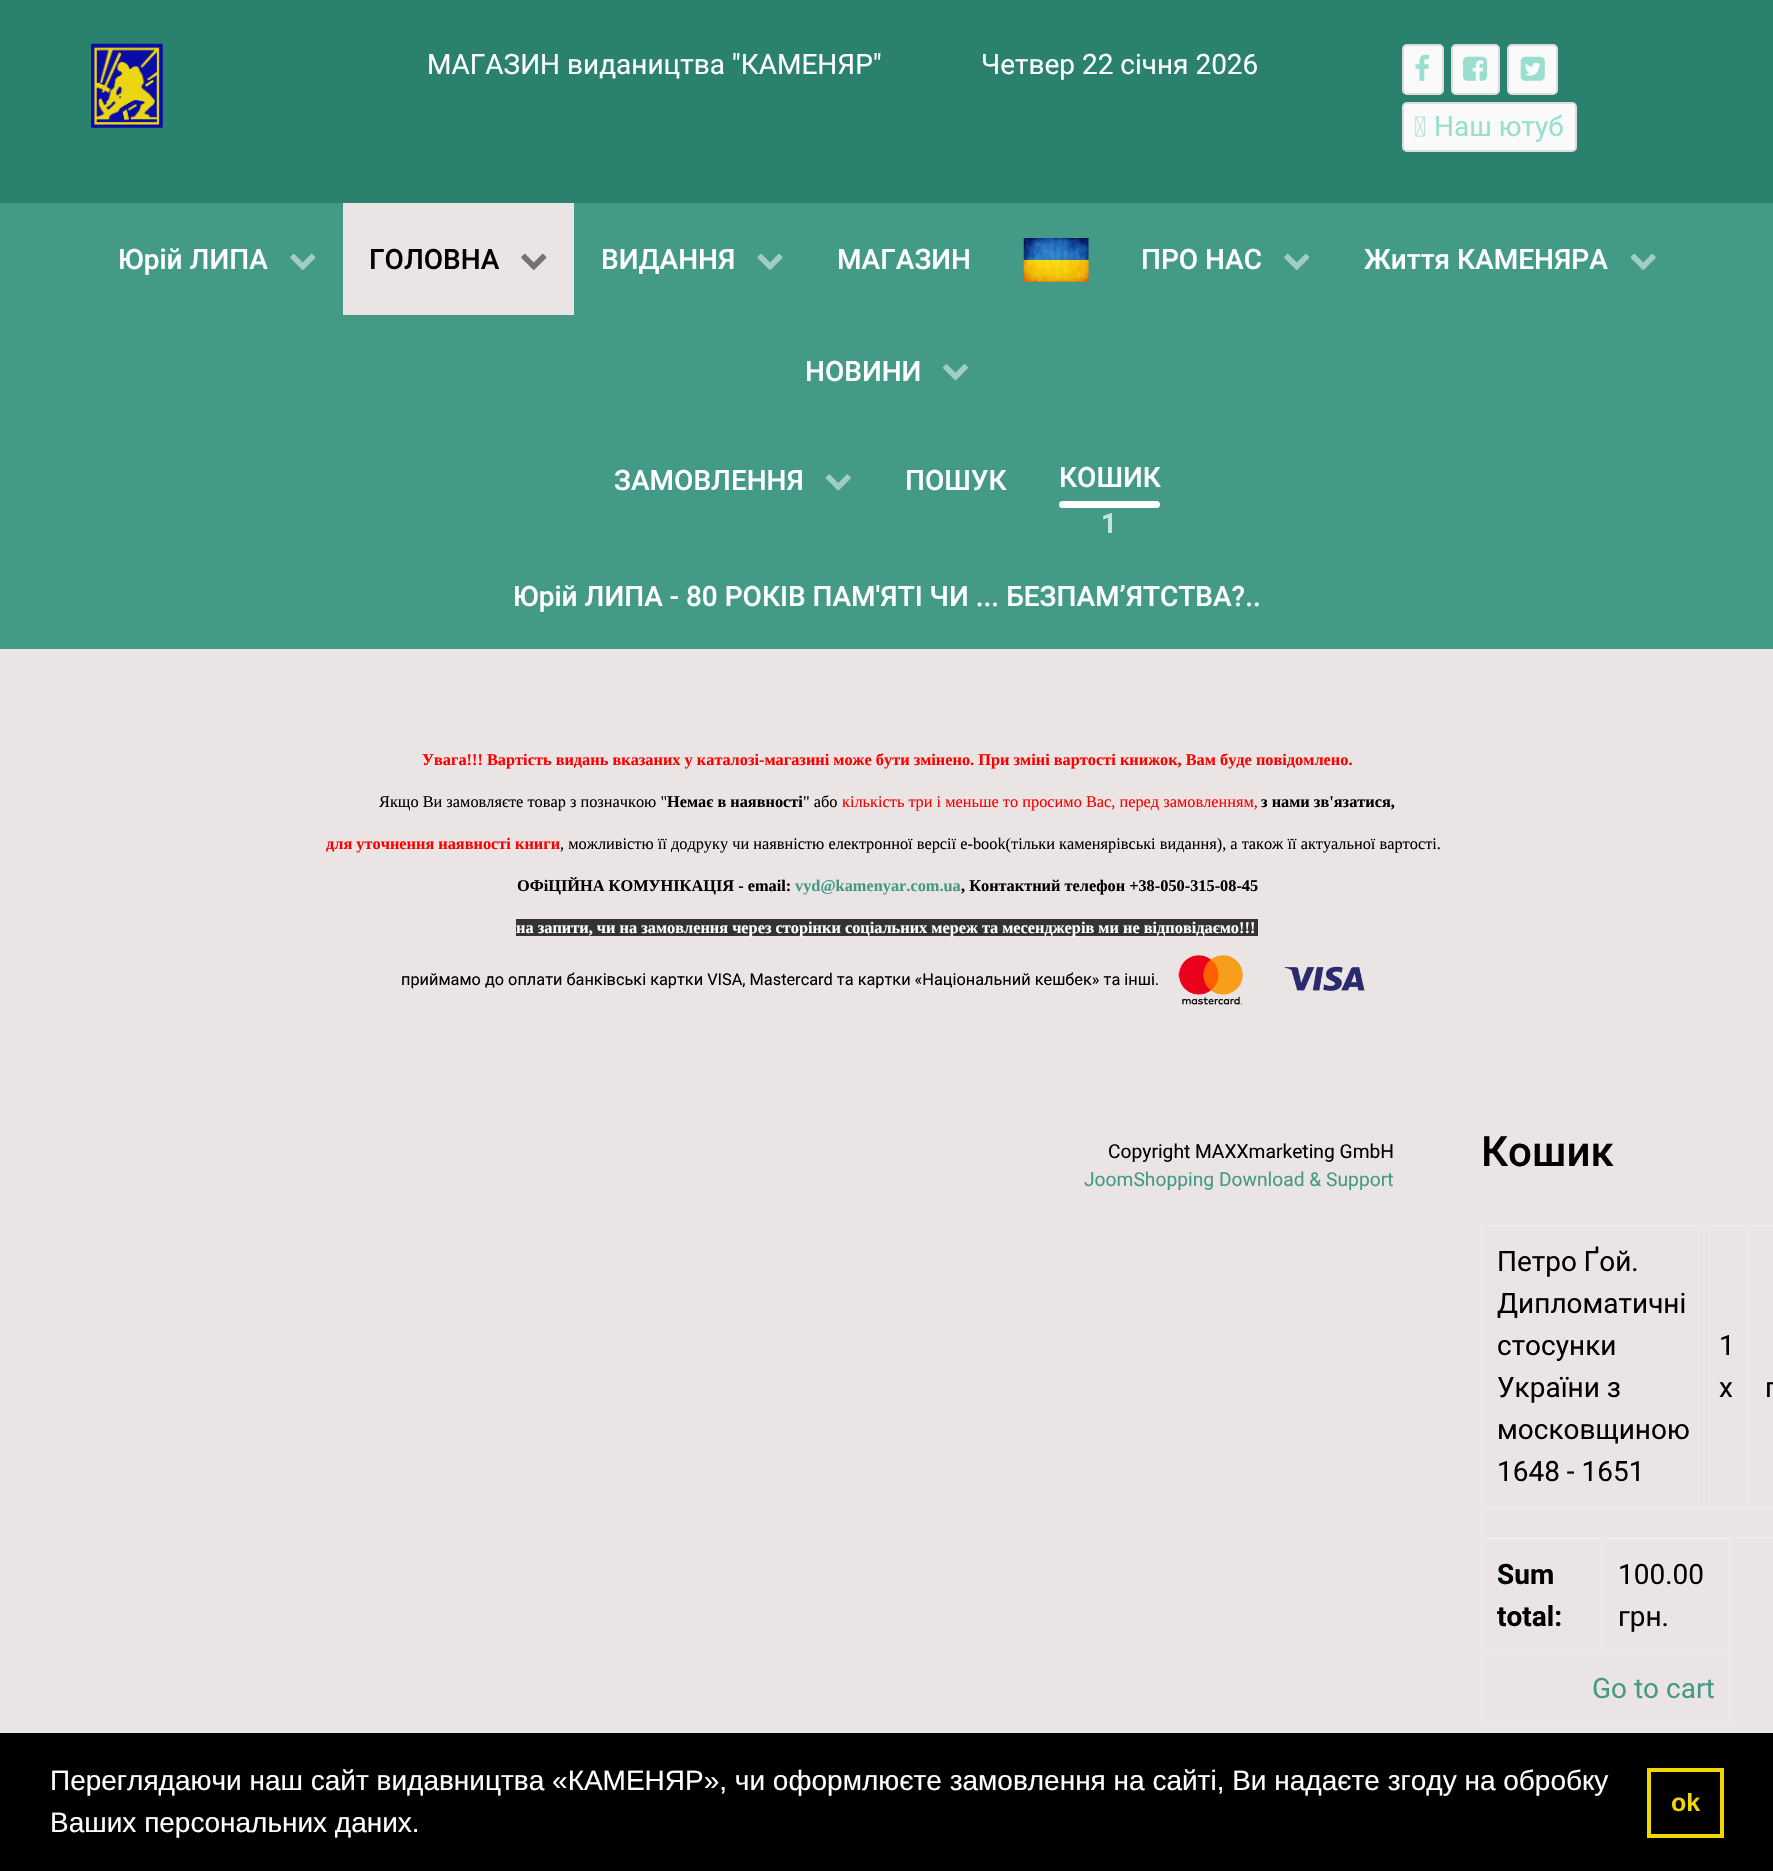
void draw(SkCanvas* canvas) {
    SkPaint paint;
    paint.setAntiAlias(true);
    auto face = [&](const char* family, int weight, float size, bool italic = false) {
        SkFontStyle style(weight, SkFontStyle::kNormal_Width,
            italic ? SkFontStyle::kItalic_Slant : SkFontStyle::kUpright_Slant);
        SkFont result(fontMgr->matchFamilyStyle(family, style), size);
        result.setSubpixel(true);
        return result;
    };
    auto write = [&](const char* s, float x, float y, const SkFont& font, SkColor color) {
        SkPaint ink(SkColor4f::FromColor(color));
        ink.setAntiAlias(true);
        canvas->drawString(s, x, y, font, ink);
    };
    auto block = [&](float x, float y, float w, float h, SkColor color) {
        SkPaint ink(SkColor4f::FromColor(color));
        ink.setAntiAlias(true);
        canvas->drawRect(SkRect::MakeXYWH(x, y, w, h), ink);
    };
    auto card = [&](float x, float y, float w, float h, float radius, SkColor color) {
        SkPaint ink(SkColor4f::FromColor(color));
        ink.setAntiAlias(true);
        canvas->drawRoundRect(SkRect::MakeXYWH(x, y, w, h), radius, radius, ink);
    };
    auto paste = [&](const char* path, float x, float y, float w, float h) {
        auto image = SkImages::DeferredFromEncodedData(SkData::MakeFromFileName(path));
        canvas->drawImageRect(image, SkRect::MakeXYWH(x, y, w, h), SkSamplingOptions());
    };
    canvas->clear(SkColorSetRGB(235, 228, 228));
    block(0, 0, 1773, 203, SkColorSetRGB(42, 129, 109));
    paste("pic1.png", 91, 43, 72, 85);
    auto kFont1 = face("Roboto", 400, 28);
    write("МАГАЗИН видаництва \"КАМЕНЯР\"", 427, 74, kFont1, SK_ColorWHITE);
    write("Четвер 22 січня 2026", 981, 74, kFont1, SK_ColorWHITE);
    paint.setColor(SkColorSetRGB(250, 250, 250));
    canvas->drawRoundRect(SkRect::MakeXYWH(1403, 45, 40, 49), 4, 4, paint);
    paint.setStyle(SkPaint::kStroke_Style);
    paint.setStrokeWidth(2);
    paint.setColor(SkColorSetRGB(221, 221, 221));
    canvas->drawRoundRect(SkRect::MakeXYWH(1403, 45, 40, 49), 4, 4, paint);
    paste("pic2.png", 1415, 54, 14, 27);
    paint.setStyle(SkPaint::kFill_Style);
    paint.setColor(SkColorSetRGB(250, 250, 250));
    canvas->drawRoundRect(SkRect::MakeXYWH(1452, 45, 47, 49), 4, 4, paint);
    paint.setStyle(SkPaint::kStroke_Style);
    paint.setColor(SkColorSetRGB(221, 221, 221));
    canvas->drawRoundRect(SkRect::MakeXYWH(1452, 45, 47, 49), 4, 4, paint);
    paste("pic3.png", 1463, 56, 24, 25);
    paint.setStyle(SkPaint::kFill_Style);
    paint.setColor(SkColorSetRGB(250, 250, 250));
    canvas->drawRoundRect(SkRect::MakeXYWH(1508, 45, 49, 49), 4, 4, paint);
    paint.setStyle(SkPaint::kStroke_Style);
    paint.setColor(SkColorSetRGB(221, 221, 221));
    canvas->drawRoundRect(SkRect::MakeXYWH(1508, 45, 49, 49), 4, 4, paint);
    paste("pic4.png", 1520, 56, 25, 25);
    paint.setStyle(SkPaint::kFill_Style);
    paint.setColor(SkColorSetRGB(250, 250, 250));
    canvas->drawRoundRect(SkRect::MakeXYWH(1403, 103, 173, 48), 4, 4, paint);
    paint.setStyle(SkPaint::kStroke_Style);
    paint.setColor(SkColorSetRGB(221, 221, 221));
    canvas->drawRoundRect(SkRect::MakeXYWH(1403, 103, 173, 48), 4, 4, paint);
    paste("pic5.png", 1415, 116, 11, 21);
    write("Наш ютуб", 1434, 136, kFont1, SkColorSetRGB(153, 222, 206));
    block(0, 203, 1773, 446, SkColorSetRGB(67, 154, 134));
    auto kFont2 = face("Roboto", 500, 28);
    write("Юрій ЛИПА", 118, 269, kFont2, SK_ColorWHITE);
    paste("pic6.png", 290, 253, 26, 17);
    block(343, 203, 231, 112, SkColorSetRGB(235, 228, 228));
    write("ГОЛОВНА", 369, 269, kFont2, SK_ColorBLACK);
    paste("pic7.png", 521, 253, 26, 17);
    write("ВИДАННЯ", 601, 269, kFont2, SK_ColorWHITE);
    paste("pic8.png", 757, 253, 26, 17);
    write("МАГАЗИН", 837, 269, kFont2, SK_ColorWHITE);
    paste("pic9.png", 1023, 238, 66, 44);
    write("ПРО НАС", 1141, 269, kFont2, SK_ColorWHITE);
    paste("pic6.png", 1284, 253, 26, 17);
    write("Життя КАМЕНЯРА", 1364, 269, kFont2, SK_ColorWHITE);
    paste("pic10.png", 1630, 253, 26, 17);
    write("НОВИНИ", 805, 381, kFont2, SK_ColorWHITE);
    paste("pic11.png", 942, 364, 27, 17);
    write("ЗАМОВЛЕННЯ", 614, 490, kFont2, SK_ColorWHITE);
    paste("pic12.png", 825, 474, 26, 17);
    write("ПОШУК", 905, 490, kFont2, SK_ColorWHITE);
    write("КОШИК", 1059, 487, kFont2, SK_ColorWHITE);
    card(1059, 501, 101, 7, 3.5f, SK_ColorWHITE);
    auto kFont3 = face("Roboto", 700, 28);
    write("1", 1101, 533, kFont3, SkColorSetRGB(196, 229, 222));
    write("Юрій ЛИПА - 80 РОКІВ ПАМ'ЯТІ ЧИ ... БЕЗПАМ’ЯТСТВА?..", 513, 606, kFont2, SK_ColorWHITE);
    auto kFont4 = face("Liberation Serif", 700, 16.33f);
    write("Увага!!! Вартість видань вказаних у каталозі-магазині може бути змінено. При зміні вартості книжок, Вам буде повідомлено.", 422, 765, kFont4, SkColorSetRGB(255, 0, 0));
    auto kFont5 = face("Liberation Serif", 400, 16.33f);
    write("Якщо Ви замовляєте товар з позначкою \"", 379, 807, kFont5, SK_ColorBLACK);
    write("Немає в наявності", 667, 807, kFont4, SK_ColorBLACK);
    write("\" або", 803, 807, kFont5, SK_ColorBLACK);
    write("кількість три і меньше то просимо Вас, перед замовленням,", 842, 807, kFont5, SkColorSetRGB(255, 0, 0));
    write("з нами зв'язатися,", 1261, 807, kFont4, SK_ColorBLACK);
    write("для уточнення наявності книги", 326, 849, kFont4, SkColorSetRGB(255, 0, 0));
    write(", можливістю її додруку чи наявністю електронної версії e-book(тільки каменярівські видання), а також її актуальної вартості.", 560, 849, kFont5, SK_ColorBLACK);
    write("ОФіЦІЙНА КОМУНІКАЦІЯ - email:", 517, 891, kFont4, SK_ColorBLACK);
    write("vyd@kamenyar.com.ua", 795, 891, kFont4, SkColorSetRGB(67, 154, 134));
    write(", Контактний телефон +38-050-315-08-45", 961, 891, kFont4, SK_ColorBLACK);
    block(516, 919, 742, 17, SkColorSetRGB(51, 51, 51));
    write("на запити, чи на замовлення через сторінки соціальних мереж та месенджерів ми не відповідаємо!!!", 516, 933, kFont4, SK_ColorWHITE);
    auto kFont6 = face("Roboto", 400, 16.33f);
    write("приймамо до оплати банківські картки VISA, Mastercard та картки «Національний кешбек» та інші.", 401, 985, kFont6, SK_ColorBLACK);
    paste("pic13.png", 1178, 955, 187, 50);
    auto kFont7 = face("Roboto", 400, 19.25f);
    write("Copyright MAXXmarketing GmbH", 1108, 1158, kFont7, SK_ColorBLACK);
    write("JoomShopping Download & Support", 1084, 1186, kFont7, SkColorSetRGB(67, 154, 134));
    auto kFont8 = face("Roboto", 500, 42);
    write("Кошик", 1481, 1166, kFont8, SK_ColorBLACK);
    block(1481, 1225, 292, 2, SkColorSetRGB(234, 234, 234));
    block(1481, 1537, 292, 2, SkColorSetRGB(234, 234, 234));
    block(1481, 1225, 2, 313, SkColorSetRGB(234, 234, 234));
    write("Петро Ґой.", 1497, 1271, kFont1, SK_ColorBLACK);
    write("Дипломатичні", 1497, 1313, kFont1, SK_ColorBLACK);
    write("стосунки", 1497, 1355, kFont1, SK_ColorBLACK);
    write("України з", 1497, 1397, kFont1, SK_ColorBLACK);
    write("московщиною", 1497, 1439, kFont1, SK_ColorBLACK);
    write("1648 - 1651", 1497, 1481, kFont1, SK_ColorBLACK);
    block(1481, 1507, 292, 2, SkColorSetRGB(234, 234, 234));
    block(1703, 1225, 2, 284, SkColorSetRGB(234, 234, 234));
    write("1", 1719, 1355, kFont1, SK_ColorBLACK);
    write("x", 1719, 1397, kFont1, SK_ColorBLACK);
    block(1748, 1225, 2, 284, SkColorSetRGB(234, 234, 234));
    write("г", 1765, 1397, kFont1, SK_ColorBLACK);
    block(1481, 1539, 250, 1, SkColorSetRGB(234, 234, 234));
    block(1729, 1538, 2, 188, SkColorSetRGB(234, 234, 234));
    block(1481, 1724, 250, 2, SkColorSetRGB(234, 234, 234));
    block(1481, 1538, 2, 188, SkColorSetRGB(234, 234, 234));
    write("Sum", 1497, 1584, kFont3, SK_ColorBLACK);
    write("total:", 1497, 1626, kFont3, SK_ColorBLACK);
    block(1481, 1652, 250, 2, SkColorSetRGB(234, 234, 234));
    block(1601, 1538, 2, 116, SkColorSetRGB(234, 234, 234));
    write("100.00", 1618, 1584, kFont1, SK_ColorBLACK);
    write("грн.", 1618, 1626, kFont1, SK_ColorBLACK);
    write("Go to cart", 1592, 1698, kFont1, SkColorSetRGB(67, 154, 134));
    block(0, 1733, 1773, 138, SK_ColorBLACK);
    auto kFont9 = face("Liberation Sans", 400, 28);
    write("Переглядаючи наш сайт видавництва «КАМЕНЯР», чи оформлюєте замовлення на сайті, Ви надаєте згоду на обробку", 50, 1790, kFont9, SK_ColorWHITE);
    write("Ваших персональних даних.", 50, 1832, kFont9, SK_ColorWHITE);
    paint.setStrokeWidth(4);
    paint.setColor(SkColorSetRGB(241, 214, 0));
    canvas->drawRect(SkRect::MakeXYWH(1649, 1770, 73, 66), paint);
    auto kFont10 = face("Liberation Sans", 700, 25);
    write("ok", 1671, 1811, kFont10, SkColorSetRGB(241, 214, 0));
}
